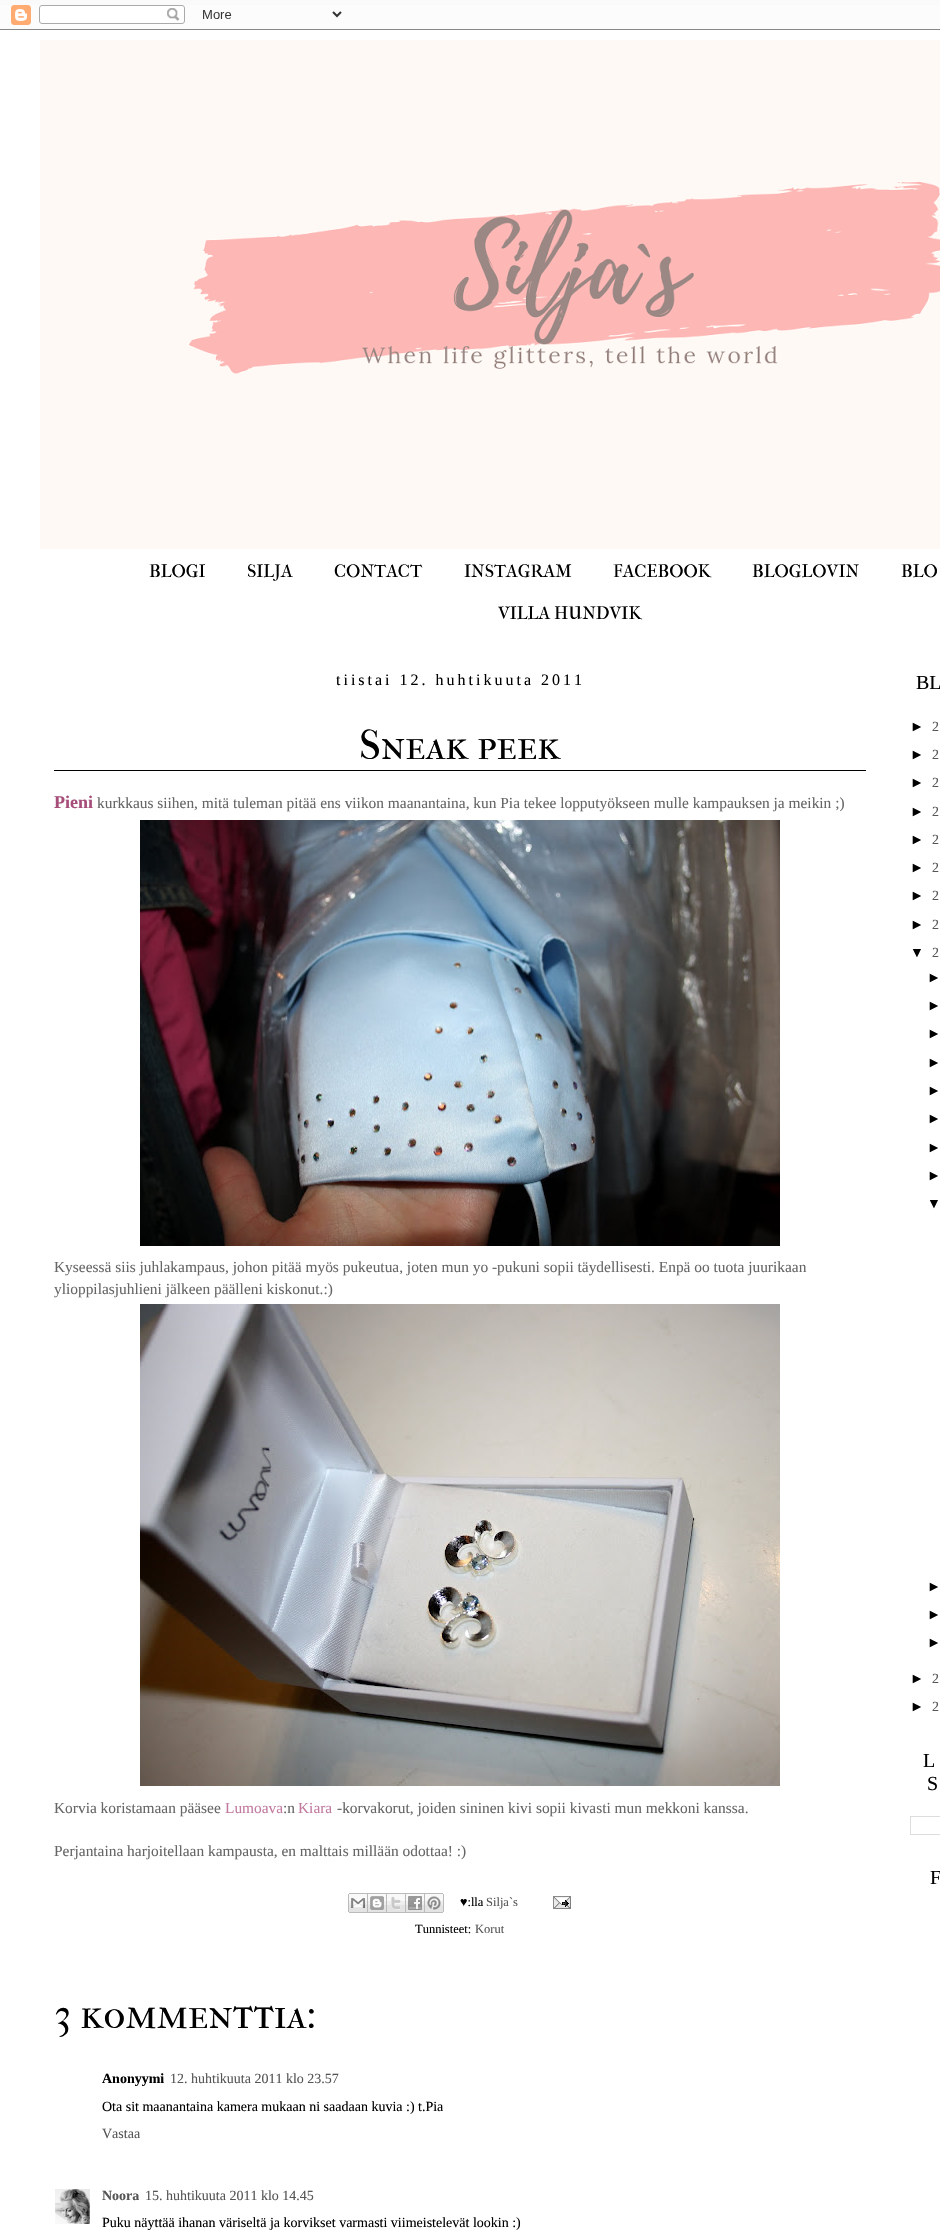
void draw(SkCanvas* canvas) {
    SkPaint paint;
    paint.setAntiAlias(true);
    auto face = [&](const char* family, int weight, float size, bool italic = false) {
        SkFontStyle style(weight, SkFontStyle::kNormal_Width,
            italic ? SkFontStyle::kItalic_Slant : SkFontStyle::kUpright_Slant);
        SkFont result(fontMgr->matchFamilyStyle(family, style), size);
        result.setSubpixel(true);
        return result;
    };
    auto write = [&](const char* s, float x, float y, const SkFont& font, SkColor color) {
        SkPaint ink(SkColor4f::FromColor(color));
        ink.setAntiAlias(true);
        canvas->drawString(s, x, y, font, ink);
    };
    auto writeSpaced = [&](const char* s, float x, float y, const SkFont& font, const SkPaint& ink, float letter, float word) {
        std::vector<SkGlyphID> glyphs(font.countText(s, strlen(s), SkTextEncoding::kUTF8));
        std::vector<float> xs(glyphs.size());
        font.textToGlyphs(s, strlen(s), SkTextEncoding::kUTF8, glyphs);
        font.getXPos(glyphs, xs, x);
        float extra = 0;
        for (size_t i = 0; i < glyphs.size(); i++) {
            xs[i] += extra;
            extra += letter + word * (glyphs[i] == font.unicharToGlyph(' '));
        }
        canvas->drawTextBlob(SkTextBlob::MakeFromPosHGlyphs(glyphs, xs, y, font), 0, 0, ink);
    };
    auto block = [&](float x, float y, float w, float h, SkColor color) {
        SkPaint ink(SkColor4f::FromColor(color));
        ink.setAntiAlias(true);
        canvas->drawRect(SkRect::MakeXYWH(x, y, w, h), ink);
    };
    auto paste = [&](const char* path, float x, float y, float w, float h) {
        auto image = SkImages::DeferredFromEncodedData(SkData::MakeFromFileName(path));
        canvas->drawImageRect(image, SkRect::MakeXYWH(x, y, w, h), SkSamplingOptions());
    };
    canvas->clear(SkColorSetRGB(250, 250, 250));
    paste("pic1.png", 0, 5, 940, 25);
    block(0, 30, 940, 2205, SK_ColorWHITE);
    paste("pic2.png", 40, 40, 900, 509);
    auto kFont1 = face("IM FELL French Canon SC", 400, 18);
    write("BLOGI", 149, 577, kFont1, SK_ColorBLACK);
    write("SILJA", 247, 577, kFont1, SK_ColorBLACK);
    write("CONTACT", 334, 577, kFont1, SK_ColorBLACK);
    write("INSTAGRAM", 464, 577, kFont1, SK_ColorBLACK);
    write("FACEBOOK", 613, 577, kFont1, SK_ColorBLACK);
    write("BLOGLOVIN", 752, 577, kFont1, SK_ColorBLACK);
    write("BLO", 901, 577, kFont1, SK_ColorBLACK);
    write("VILLA HUNDVIK", 498, 619, kFont1, SK_ColorBLACK);
    auto kFont2 = face("Liberation Serif", 400, 16);
    paint.setColor(SK_ColorBLACK);
    writeSpaced("tiistai 12. huhtikuuta 2011", 336, 685, kFont2, paint, 3, 0);
    block(54, 770, 812, 1, SK_ColorBLACK);
    auto kFont3 = face("IM FELL French Canon SC", 400, 42);
    write("Sneak peek", 359, 759, kFont3, SK_ColorBLACK);
    auto kFont4 = face("Liberation Serif", 700, 18);
    write("Pieni", 54, 808, kFont4, SkColorSetRGB(166, 77, 121));
    auto kFont5 = face("Liberation Serif", 400, 15.4f);
    write("kurkkaus siihen, mitä tuleman pitää ens viikon maanantaina, kun Pia tekee lopputyökseen mulle kampauksen ja meikin ;)", 97, 808, kFont5, SkColorSetRGB(102, 102, 102));
    paste("pic3.png", 140, 820, 640, 426);
    write("Kyseessä siis juhlakampaus, johon pitää myös pukeutua, joten mun yo -pukuni sopii täydellisesti. Enpä oo tuota juurikaan", 54, 1272, kFont5, SkColorSetRGB(102, 102, 102));
    write("ylioppilasjuhlieni jälkeen päälleni kiskonut.:)", 54, 1294, kFont5, SkColorSetRGB(102, 102, 102));
    paste("pic4.png", 140, 1304, 640, 482);
    write("Korvia koristamaan pääsee", 54, 1813, kFont5, SkColorSetRGB(102, 102, 102));
    write("Lumoava", 225, 1813, kFont5, SkColorSetRGB(194, 123, 160));
    write(":n", 283, 1813, kFont5, SkColorSetRGB(102, 102, 102));
    write("Kiara", 298, 1813, kFont5, SkColorSetRGB(194, 123, 160));
    write("-korvakorut, joiden sininen kivi sopii kivasti mun mekkoni kanssa.", 337, 1813, kFont5, SkColorSetRGB(102, 102, 102));
    write("Perjantaina harjoitellaan kampausta, en malttais millään odottaa! :)", 54, 1856, kFont5, SkColorSetRGB(102, 102, 102));
    paste("pic5.png", 348, 1893, 20, 20);
    paste("pic6.png", 368, 1893, 19, 20);
    paste("pic7.png", 387, 1893, 19, 20);
    paste("pic8.png", 406, 1893, 19, 20);
    paste("pic9.png", 425, 1893, 19, 20);
    auto kFont6 = face("Liberation Serif", 400, 12.5f);
    write("♥:lla", 460, 1906, kFont6, SK_ColorBLACK);
    write("Silja`s", 486, 1906, kFont6, SkColorSetRGB(85, 85, 85));
    paste("pic10.png", 553, 1896, 18, 13);
    write("Tunnisteet:", 415, 1933, kFont6, SK_ColorBLACK);
    write("Korut", 475, 1933, kFont6, SkColorSetRGB(85, 85, 85));
    write("3 kommenttia:", 54, 2028, kFont3, SK_ColorBLACK);
    auto kFont7 = face("Liberation Serif", 700, 14);
    write("Anonyymi", 102, 2083, kFont7, SK_ColorBLACK);
    auto kFont8 = face("Liberation Serif", 400, 14);
    write("12. huhtikuuta 2011 klo 23.57", 170, 2083, kFont8, SkColorSetRGB(85, 85, 85));
    write("Ota sit maanantaina kamera mukaan ni saadaan kuvia :) t.Pia", 102, 2111, kFont8, SK_ColorBLACK);
    write("Vastaa", 102, 2138, kFont8, SkColorSetRGB(85, 85, 85));
    paste("pic11.png", 55, 2189, 35, 35);
    write("Noora", 102, 2200, kFont7, SkColorSetRGB(85, 85, 85));
    write("15. huhtikuuta 2011 klo 14.45", 145, 2200, kFont8, SkColorSetRGB(85, 85, 85));
    write("Puku näyttää ihanan väriseltä ja korvikset varmasti viimeistelevät lookin :)", 102, 2227, kFont8, SK_ColorBLACK);
    auto kFont9 = face("Liberation Serif", 400, 20);
    write("BL", 916, 689, kFont9, SK_ColorBLACK);
    auto kFont10 = face("Liberation Sans", 400, 14);
    write("►", 910, 731, kFont10, SK_ColorBLACK);
    write("2", 932, 731, kFont8, SkColorSetRGB(85, 85, 85));
    write("►", 910, 759, kFont10, SK_ColorBLACK);
    write("2", 932, 759, kFont8, SkColorSetRGB(85, 85, 85));
    write("►", 910, 787, kFont10, SK_ColorBLACK);
    write("2", 932, 787, kFont8, SkColorSetRGB(85, 85, 85));
    write("►", 910, 816, kFont10, SK_ColorBLACK);
    write("2", 932, 816, kFont8, SkColorSetRGB(85, 85, 85));
    write("►", 910, 844, kFont10, SK_ColorBLACK);
    write("2", 932, 844, kFont8, SkColorSetRGB(85, 85, 85));
    write("►", 910, 872, kFont10, SK_ColorBLACK);
    write("2", 932, 872, kFont8, SkColorSetRGB(85, 85, 85));
    write("►", 910, 900, kFont10, SK_ColorBLACK);
    write("2", 932, 900, kFont8, SkColorSetRGB(85, 85, 85));
    write("►", 910, 929, kFont10, SK_ColorBLACK);
    write("2", 932, 929, kFont8, SkColorSetRGB(85, 85, 85));
    write("▼", 910, 957, kFont10, SK_ColorBLACK);
    write("2", 932, 957, kFont8, SkColorSetRGB(85, 85, 85));
    write("►", 927, 982, kFont10, SK_ColorBLACK);
    write("►", 927, 1010, kFont10, SK_ColorBLACK);
    write("►", 927, 1038, kFont10, SK_ColorBLACK);
    write("►", 927, 1067, kFont10, SK_ColorBLACK);
    write("►", 927, 1095, kFont10, SK_ColorBLACK);
    write("►", 927, 1123, kFont10, SK_ColorBLACK);
    write("►", 927, 1152, kFont10, SK_ColorBLACK);
    write("►", 927, 1180, kFont10, SK_ColorBLACK);
    write("▼", 927, 1208, kFont10, SK_ColorBLACK);
    write("►", 927, 1591, kFont10, SK_ColorBLACK);
    write("►", 927, 1619, kFont10, SK_ColorBLACK);
    write("►", 927, 1647, kFont10, SK_ColorBLACK);
    write("►", 910, 1683, kFont10, SK_ColorBLACK);
    write("2", 932, 1683, kFont8, SkColorSetRGB(85, 85, 85));
    write("►", 910, 1711, kFont10, SK_ColorBLACK);
    write("2", 932, 1711, kFont8, SkColorSetRGB(85, 85, 85));
    write("L", 923, 1767, kFont9, SK_ColorBLACK);
    write("S", 927, 1790, kFont9, SK_ColorBLACK);
    paint.setStyle(SkPaint::kStroke_Style);
    paint.setStrokeWidth(1);
    paint.setColor(SkColorSetRGB(221, 221, 221));
    canvas->drawRect(SkRect::MakeXYWH(910.5f, 1816.5f, 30, 18), paint);
    write("F", 930, 1884, kFont9, SK_ColorBLACK);
}
